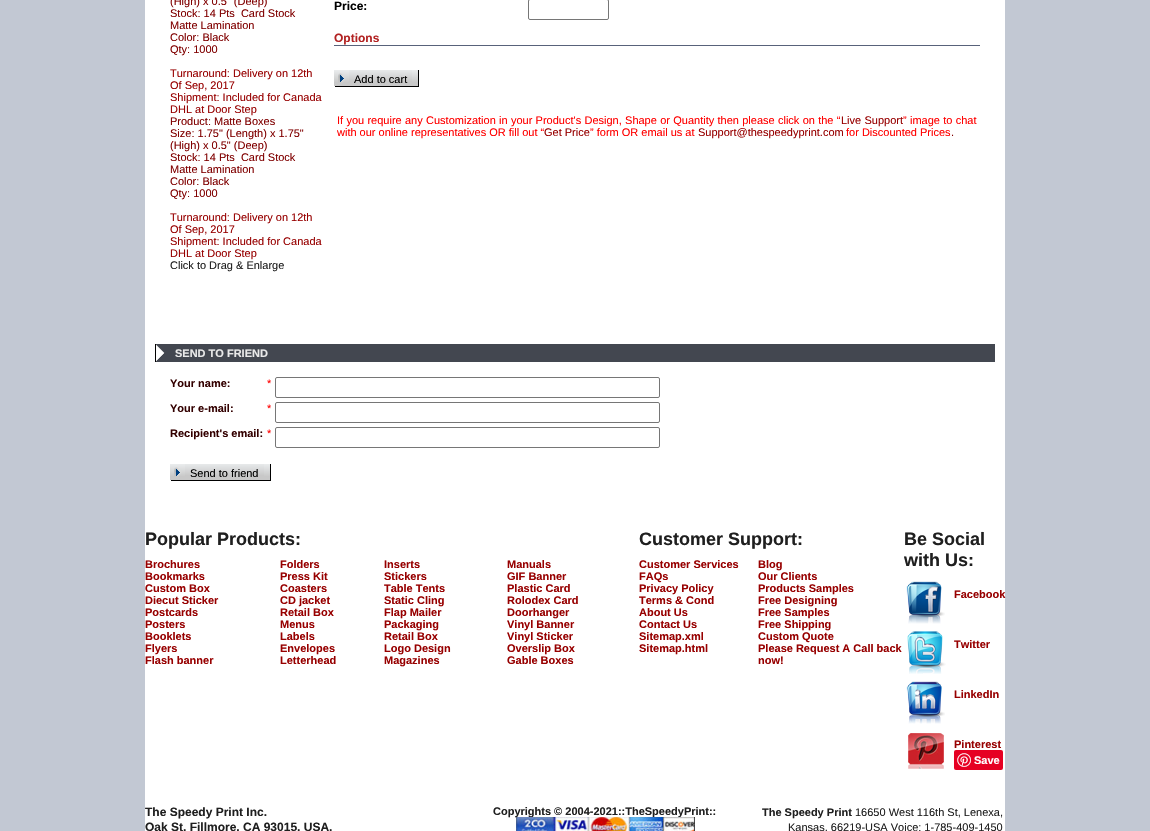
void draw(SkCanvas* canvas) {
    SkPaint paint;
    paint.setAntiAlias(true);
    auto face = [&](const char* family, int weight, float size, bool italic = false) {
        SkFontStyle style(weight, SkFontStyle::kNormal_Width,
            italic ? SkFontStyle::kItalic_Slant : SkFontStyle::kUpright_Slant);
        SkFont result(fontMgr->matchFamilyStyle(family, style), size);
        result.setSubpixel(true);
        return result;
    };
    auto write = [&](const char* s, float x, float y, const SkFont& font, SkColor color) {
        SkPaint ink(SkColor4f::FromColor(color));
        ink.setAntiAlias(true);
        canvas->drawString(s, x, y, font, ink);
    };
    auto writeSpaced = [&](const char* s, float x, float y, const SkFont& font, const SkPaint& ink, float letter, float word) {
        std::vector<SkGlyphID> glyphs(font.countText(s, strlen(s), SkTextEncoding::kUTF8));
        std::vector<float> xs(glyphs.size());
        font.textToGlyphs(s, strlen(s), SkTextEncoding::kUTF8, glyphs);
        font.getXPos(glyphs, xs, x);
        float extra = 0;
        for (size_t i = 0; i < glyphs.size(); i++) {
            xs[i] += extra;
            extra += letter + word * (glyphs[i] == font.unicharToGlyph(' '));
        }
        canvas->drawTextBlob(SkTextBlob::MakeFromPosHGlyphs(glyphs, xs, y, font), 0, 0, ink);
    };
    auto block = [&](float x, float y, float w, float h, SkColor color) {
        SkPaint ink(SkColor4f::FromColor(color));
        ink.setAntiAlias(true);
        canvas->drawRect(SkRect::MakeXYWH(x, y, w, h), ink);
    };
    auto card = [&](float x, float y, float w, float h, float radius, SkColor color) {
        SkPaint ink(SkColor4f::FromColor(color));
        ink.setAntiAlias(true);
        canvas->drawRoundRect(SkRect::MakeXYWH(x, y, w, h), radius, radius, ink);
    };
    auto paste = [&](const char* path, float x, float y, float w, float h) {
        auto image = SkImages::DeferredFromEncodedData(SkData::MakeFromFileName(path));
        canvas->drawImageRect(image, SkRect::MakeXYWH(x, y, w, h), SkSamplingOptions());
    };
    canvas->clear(SkColorSetRGB(194, 200, 211));
    block(145, 0, 860, 831, SK_ColorWHITE);
    auto kFont1 = face("Liberation Sans", 400, 11);
    write("(High) x 0.5\" (Deep)", 170, 5, kFont1, SkColorSetRGB(128, 0, 0));
    write("Stock: 14 Pts  Card Stock", 170, 17, kFont1, SkColorSetRGB(128, 0, 0));
    write("Matte Lamination", 170, 29, kFont1, SkColorSetRGB(128, 0, 0));
    write("Color: Black", 170, 41, kFont1, SkColorSetRGB(128, 0, 0));
    write("Qty: 1000", 170, 53, kFont1, SkColorSetRGB(128, 0, 0));
    write("Turnaround: Delivery on 12th", 170, 77, kFont1, SkColorSetRGB(151, 0, 0));
    write("Of Sep, 2017", 170, 89, kFont1, SkColorSetRGB(151, 0, 0));
    write("Shipment: Included for Canada", 170, 101, kFont1, SkColorSetRGB(151, 0, 0));
    write("DHL at Door Step", 170, 113, kFont1, SkColorSetRGB(151, 0, 0));
    write("Product: Matte Boxes", 170, 125, kFont1, SkColorSetRGB(128, 0, 0));
    write("Size: 1.75\" (Length) x 1.75\"", 170, 137, kFont1, SkColorSetRGB(128, 0, 0));
    write("(High) x 0.5\" (Deep)", 170, 149, kFont1, SkColorSetRGB(128, 0, 0));
    write("Stock: 14 Pts  Card Stock", 170, 161, kFont1, SkColorSetRGB(128, 0, 0));
    write("Matte Lamination", 170, 173, kFont1, SkColorSetRGB(128, 0, 0));
    write("Color: Black", 170, 185, kFont1, SkColorSetRGB(128, 0, 0));
    write("Qty: 1000", 170, 197, kFont1, SkColorSetRGB(128, 0, 0));
    write("Turnaround: Delivery on 12th", 170, 221, kFont1, SkColorSetRGB(151, 0, 0));
    write("Of Sep, 2017", 170, 233, kFont1, SkColorSetRGB(151, 0, 0));
    write("Shipment: Included for Canada", 170, 245, kFont1, SkColorSetRGB(151, 0, 0));
    write("DHL at Door Step", 170, 257, kFont1, SkColorSetRGB(151, 0, 0));
    write("Click to Drag & Enlarge", 170, 269, kFont1, SkColorSetRGB(31, 31, 31));
    auto kFont2 = face("Liberation Sans", 700, 12);
    write("Price:", 334, 10, kFont2, SK_ColorBLACK);
    paint.setStyle(SkPaint::kStroke_Style);
    paint.setStrokeWidth(1);
    paint.setColor(SkColorSetRGB(118, 118, 118));
    canvas->drawRoundRect(SkRect::MakeXYWH(528.5f, -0.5f, 80, 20), 1.5f, 1.5f, paint);
    write("Options", 334, 42, kFont2, SkColorSetRGB(178, 34, 34));
    block(334, 45, 646, 1, SkColorSetRGB(88, 98, 122));
    paste("pic1.png", 334, 70, 15, 17);
    paste("pic2.png", 349, 70, 63, 17);
    write("Add to cart", 354, 83, kFont1, SK_ColorBLACK);
    paste("pic3.png", 412, 70, 7, 17);
    paint.setStyle(SkPaint::kFill_Style);
    paint.setColor(SkColorSetRGB(255, 0, 0));
    writeSpaced("If you require any Customization in your Product's Design, Shape or Quantity then please click on the “", 337, 124, kFont1, paint, 0, 0.25f);
    paint.setColor(SkColorSetRGB(151, 0, 0));
    writeSpaced("Live Support", 841, 124, kFont1, paint, 0, 0.25f);
    paint.setColor(SkColorSetRGB(255, 0, 0));
    writeSpaced("” image to chat", 903, 124, kFont1, paint, 0, 0.25f);
    write("with our online representatives OR fill out “", 337, 136, kFont1, SkColorSetRGB(255, 0, 0));
    write("Get Price", 544, 136, kFont1, SkColorSetRGB(151, 0, 0));
    write("” form OR email us at", 590, 136, kFont1, SkColorSetRGB(255, 0, 0));
    write("Support@thespeedyprint.com", 698, 136, kFont1, SkColorSetRGB(151, 0, 0));
    write("for Discounted Prices", 846, 136, kFont1, SkColorSetRGB(255, 0, 0));
    write(".", 951, 136, kFont1, SkColorSetRGB(128, 0, 0));
    block(156, 344, 839, 18, SkColorSetRGB(67, 71, 80));
    paste("pic4.png", 155, 344, 10, 18);
    auto kFont3 = face("Liberation Sans", 700, 11);
    write("SEND TO FRIEND", 175, 357, kFont3, SkColorSetRGB(233, 233, 233));
    write("Your name:", 170, 387, kFont3, SkColorSetRGB(51, 0, 0));
    write("*", 267, 387, kFont1, SkColorSetRGB(255, 0, 0));
    paint.setStyle(SkPaint::kStroke_Style);
    paint.setColor(SkColorSetRGB(118, 118, 118));
    canvas->drawRoundRect(SkRect::MakeXYWH(275.5f, 377.5f, 384, 20), 1.5f, 1.5f, paint);
    write("Your e-mail:", 170, 412, kFont3, SkColorSetRGB(51, 0, 0));
    write("*", 267, 412, kFont1, SkColorSetRGB(255, 0, 0));
    canvas->drawRoundRect(SkRect::MakeXYWH(275.5f, 402.5f, 384, 20), 1.5f, 1.5f, paint);
    write("Recipient's email:", 170, 437, kFont3, SkColorSetRGB(51, 0, 0));
    write("*", 267, 437, kFont1, SkColorSetRGB(255, 0, 0));
    canvas->drawRoundRect(SkRect::MakeXYWH(275.5f, 427.5f, 384, 20), 1.5f, 1.5f, paint);
    paste("pic1.png", 170, 464, 15, 17);
    paste("pic5.png", 185, 464, 79, 17);
    write("Send to friend", 190, 477, kFont1, SK_ColorBLACK);
    paste("pic3.png", 264, 464, 7, 17);
    auto kFont4 = face("Liberation Sans", 700, 18);
    write("Popular Products:", 145, 545, kFont4, SkColorSetRGB(31, 31, 31));
    write("Brochures", 145, 568, kFont3, SkColorSetRGB(151, 0, 0));
    write("Bookmarks", 145, 580, kFont3, SkColorSetRGB(151, 0, 0));
    write("Custom Box", 145, 592, kFont3, SkColorSetRGB(151, 0, 0));
    write("Diecut Sticker", 145, 604, kFont3, SkColorSetRGB(151, 0, 0));
    write("Postcards", 145, 616, kFont3, SkColorSetRGB(151, 0, 0));
    write("Posters", 145, 628, kFont3, SkColorSetRGB(151, 0, 0));
    write("Booklets", 145, 640, kFont3, SkColorSetRGB(151, 0, 0));
    write("Flyers", 145, 652, kFont3, SkColorSetRGB(151, 0, 0));
    write("Flash banner", 145, 664, kFont3, SkColorSetRGB(151, 0, 0));
    write("Folders", 280, 568, kFont3, SkColorSetRGB(151, 0, 0));
    write("Press Kit", 280, 580, kFont3, SkColorSetRGB(151, 0, 0));
    write("Coasters", 280, 592, kFont3, SkColorSetRGB(151, 0, 0));
    write("CD jacket", 280, 604, kFont3, SkColorSetRGB(151, 0, 0));
    write("Retail Box", 280, 616, kFont3, SkColorSetRGB(151, 0, 0));
    write("Menus", 280, 628, kFont3, SkColorSetRGB(151, 0, 0));
    write("Labels", 280, 640, kFont3, SkColorSetRGB(151, 0, 0));
    write("Envelopes", 280, 652, kFont3, SkColorSetRGB(151, 0, 0));
    write("Letterhead", 280, 664, kFont3, SkColorSetRGB(151, 0, 0));
    write("Inserts", 384, 568, kFont3, SkColorSetRGB(151, 0, 0));
    write("Stickers", 384, 580, kFont3, SkColorSetRGB(151, 0, 0));
    write("Table Tents", 384, 592, kFont3, SkColorSetRGB(151, 0, 0));
    write("Static Cling", 384, 604, kFont3, SkColorSetRGB(151, 0, 0));
    write("Flap Mailer", 384, 616, kFont3, SkColorSetRGB(151, 0, 0));
    write("Packaging", 384, 628, kFont3, SkColorSetRGB(151, 0, 0));
    write("Retail Box", 384, 640, kFont3, SkColorSetRGB(151, 0, 0));
    write("Logo Design", 384, 652, kFont3, SkColorSetRGB(151, 0, 0));
    write("Magazines", 384, 664, kFont3, SkColorSetRGB(151, 0, 0));
    write("Manuals", 507, 568, kFont3, SkColorSetRGB(151, 0, 0));
    write("GIF Banner", 507, 580, kFont3, SkColorSetRGB(151, 0, 0));
    write("Plastic Card", 507, 592, kFont3, SkColorSetRGB(151, 0, 0));
    write("Rolodex Card", 507, 604, kFont3, SkColorSetRGB(151, 0, 0));
    write("Doorhanger", 507, 616, kFont3, SkColorSetRGB(151, 0, 0));
    write("Vinyl Banner", 507, 628, kFont3, SkColorSetRGB(151, 0, 0));
    write("Vinyl Sticker", 507, 640, kFont3, SkColorSetRGB(151, 0, 0));
    write("Overslip Box", 507, 652, kFont3, SkColorSetRGB(151, 0, 0));
    write("Gable Boxes", 507, 664, kFont3, SkColorSetRGB(151, 0, 0));
    write("Customer Support:", 639, 545, kFont4, SkColorSetRGB(31, 31, 31));
    write("Customer Services", 639, 568, kFont3, SkColorSetRGB(151, 0, 0));
    write("FAQs", 639, 580, kFont3, SkColorSetRGB(151, 0, 0));
    write("Privacy Policy", 639, 592, kFont3, SkColorSetRGB(151, 0, 0));
    write("Terms & Cond", 639, 604, kFont3, SkColorSetRGB(151, 0, 0));
    write("About Us", 639, 616, kFont3, SkColorSetRGB(151, 0, 0));
    write("Contact Us", 639, 628, kFont3, SkColorSetRGB(151, 0, 0));
    write("Sitemap.xml", 639, 640, kFont3, SkColorSetRGB(151, 0, 0));
    write("Sitemap.html", 639, 652, kFont3, SkColorSetRGB(151, 0, 0));
    write("Blog", 758, 568, kFont3, SkColorSetRGB(151, 0, 0));
    write("Our Clients", 758, 580, kFont3, SkColorSetRGB(151, 0, 0));
    write("Products Samples", 758, 592, kFont3, SkColorSetRGB(151, 0, 0));
    write("Free Designing", 758, 604, kFont3, SkColorSetRGB(151, 0, 0));
    write("Free Samples", 758, 616, kFont3, SkColorSetRGB(151, 0, 0));
    write("Free Shipping", 758, 628, kFont3, SkColorSetRGB(151, 0, 0));
    write("Custom Quote", 758, 640, kFont3, SkColorSetRGB(151, 0, 0));
    write("Please Request A Call back", 758, 652, kFont3, SkColorSetRGB(151, 0, 0));
    write("now!", 758, 664, kFont3, SkColorSetRGB(151, 0, 0));
    write("Be Social", 904, 545, kFont4, SkColorSetRGB(31, 31, 31));
    write("with Us:", 904, 566, kFont4, SkColorSetRGB(31, 31, 31));
    paste("pic6.png", 906, 581, 39, 43);
    write("Facebook", 954, 598, kFont3, SkColorSetRGB(151, 0, 0));
    paste("pic7.png", 907, 631, 39, 43);
    write("Twitter", 954, 648, kFont3, SkColorSetRGB(151, 0, 0));
    paste("pic8.png", 906, 681, 39, 43);
    write("LinkedIn", 954, 698, kFont3, SkColorSetRGB(151, 0, 0));
    paste("pic9.png", 908, 733, 36, 36);
    write("Pinterest", 954, 748, kFont3, SkColorSetRGB(151, 0, 0));
    card(954, 750, 49, 20, 2, SkColorSetRGB(230, 0, 35));
    paste("pic10.png", 957, 753, 14, 14);
    write("Save", 974, 764, kFont3, SK_ColorWHITE);
    write("The Speedy Print Inc.", 145, 816, kFont2, SkColorSetRGB(31, 31, 31));
    write("Oak St, Fillmore, CA 93015, USA.", 145, 831, kFont2, SkColorSetRGB(31, 31, 31));
    write("Copyrights © 2004-2021::TheSpeedyPrint::", 493, 815, kFont3, SkColorSetRGB(31, 31, 31));
    paste("pic11.png", 516, 817, 179, 14);
    write("The Speedy Print", 762, 816, kFont3, SkColorSetRGB(31, 31, 31));
    write("16650 West 116th St, Lenexa,", 855, 816, kFont1, SkColorSetRGB(31, 31, 31));
    write("Kansas, 66219-USA Voice: 1-785-409-1450", 788, 831, kFont1, SkColorSetRGB(31, 31, 31));
}
